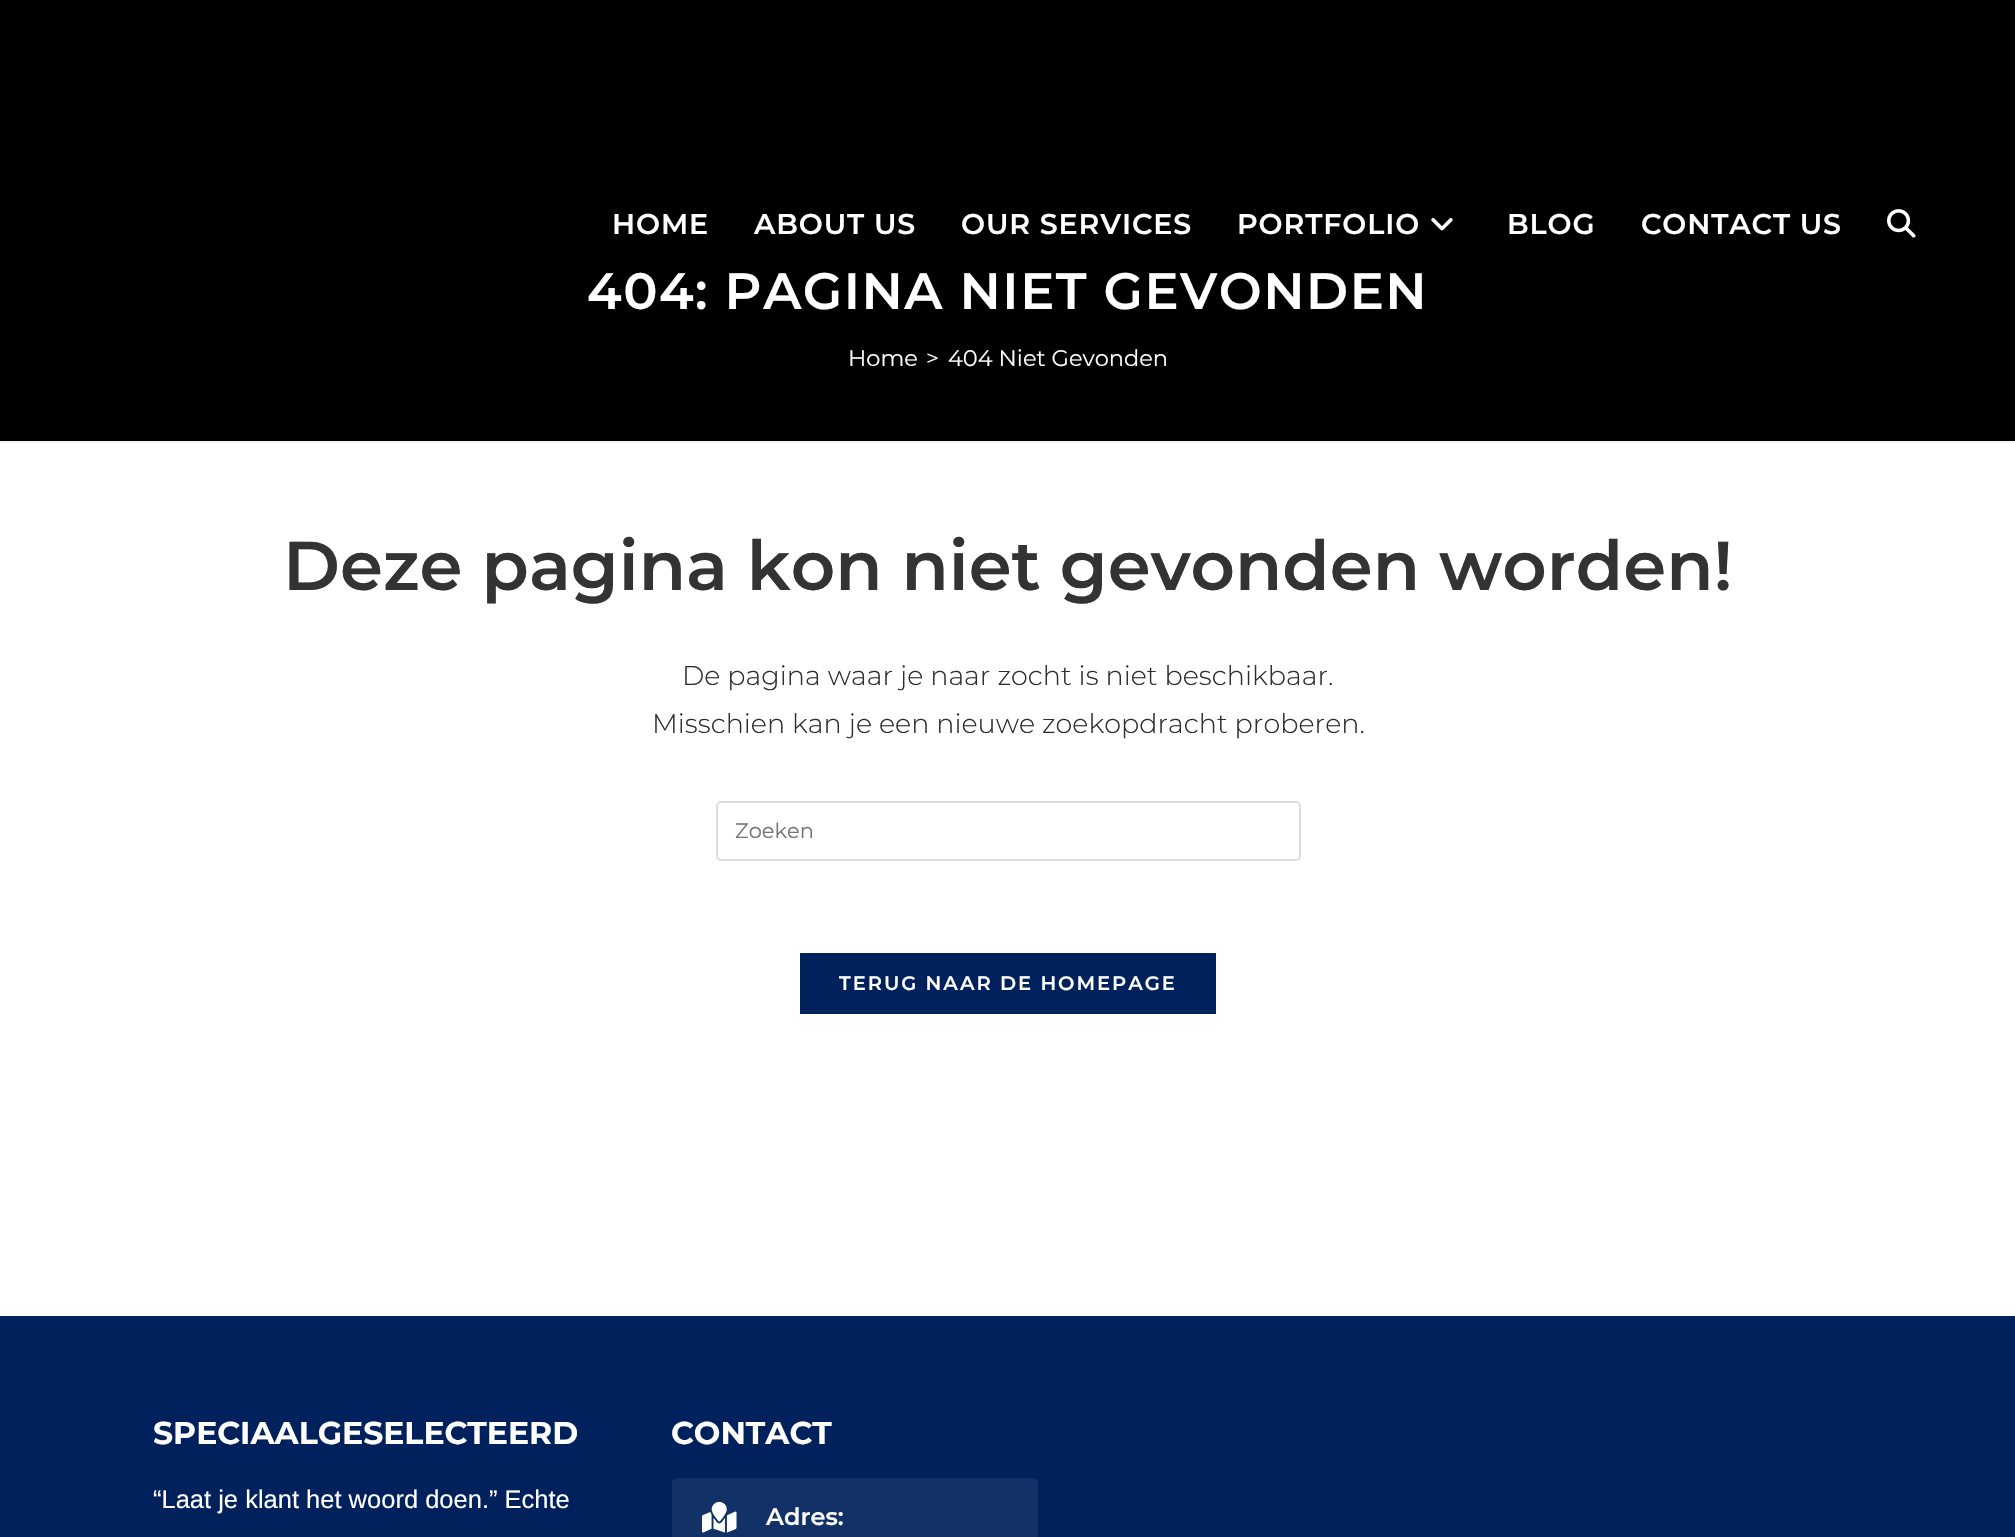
void draw(SkCanvas* canvas) {
    SkPaint paint;
    paint.setAntiAlias(true);
    auto face = [&](const char* family, int weight, float size, bool italic = false) {
        SkFontStyle style(weight, SkFontStyle::kNormal_Width,
            italic ? SkFontStyle::kItalic_Slant : SkFontStyle::kUpright_Slant);
        SkFont result(fontMgr->matchFamilyStyle(family, style), size);
        result.setSubpixel(true);
        return result;
    };
    auto write = [&](const char* s, float x, float y, const SkFont& font, SkColor color) {
        SkPaint ink(SkColor4f::FromColor(color));
        ink.setAntiAlias(true);
        canvas->drawString(s, x, y, font, ink);
    };
    auto writeSpaced = [&](const char* s, float x, float y, const SkFont& font, const SkPaint& ink, float letter, float word) {
        std::vector<SkGlyphID> glyphs(font.countText(s, strlen(s), SkTextEncoding::kUTF8));
        std::vector<float> xs(glyphs.size());
        font.textToGlyphs(s, strlen(s), SkTextEncoding::kUTF8, glyphs);
        font.getXPos(glyphs, xs, x);
        float extra = 0;
        for (size_t i = 0; i < glyphs.size(); i++) {
            xs[i] += extra;
            extra += letter + word * (glyphs[i] == font.unicharToGlyph(' '));
        }
        canvas->drawTextBlob(SkTextBlob::MakeFromPosHGlyphs(glyphs, xs, y, font), 0, 0, ink);
    };
    auto block = [&](float x, float y, float w, float h, SkColor color) {
        SkPaint ink(SkColor4f::FromColor(color));
        ink.setAntiAlias(true);
        canvas->drawRect(SkRect::MakeXYWH(x, y, w, h), ink);
    };
    auto paste = [&](const char* path, float x, float y, float w, float h) {
        auto image = SkImages::DeferredFromEncodedData(SkData::MakeFromFileName(path));
        canvas->drawImageRect(image, SkRect::MakeXYWH(x, y, w, h), SkSamplingOptions());
    };
    canvas->clear(SK_ColorWHITE);
    block(0, 0, 2015, 441, SK_ColorBLACK);
    auto kFont1 = face("Montserrat", 600, 28.5f);
    paint.setColor(SK_ColorWHITE);
    writeSpaced("HOME", 612, 234, kFont1, paint, 0.9f, 0);
    writeSpaced("ABOUT US", 754, 234, kFont1, paint, 0.9f, 0);
    writeSpaced("OUR SERVICES", 961, 234, kFont1, paint, 0.9f, 0);
    writeSpaced("PORTFOLIO", 1237, 234, kFont1, paint, 0.9f, 0);
    paste("pic1.png", 1431, 218, 22, 13);
    writeSpaced("BLOG", 1507, 234, kFont1, paint, 0.9f, 0);
    writeSpaced("CONTACT US", 1641, 234, kFont1, paint, 0.9f, 0);
    paste("pic2.png", 1887, 209, 29, 29);
    block(0, 441, 2015, 2, SkColorSetRGB(241, 241, 241));
    auto kFont2 = face("Montserrat", 600, 51);
    writeSpaced("404: PAGINA NIET GEVONDEN", 587, 309, kFont2, paint, 1.5f, 0);
    auto kFont3 = face("Montserrat", 400, 22.5f);
    write("Home", 848, 366, kFont3, SK_ColorWHITE);
    write(">", 926, 366, kFont3, SK_ColorWHITE);
    write("404 Niet Gevonden", 948, 366, kFont3, SK_ColorWHITE);
    auto kFont4 = face("Montserrat", 600, 69);
    write("Deze pagina kon niet gevonden worden!", 283, 590, kFont4, SkColorSetRGB(51, 51, 51));
    auto kFont5 = face("Montserrat", 300, 27);
    write("De pagina waar je naar zocht is niet beschikbaar.", 682, 685, kFont5, SkColorSetRGB(45, 45, 45));
    write("Misschien kan je een nieuwe zoekopdracht proberen.", 652, 733, kFont5, SkColorSetRGB(45, 45, 45));
    paint.setStyle(SkPaint::kStroke_Style);
    paint.setStrokeWidth(2);
    paint.setColor(SkColorSetRGB(221, 221, 221));
    canvas->drawRoundRect(SkRect::MakeXYWH(717, 802, 583, 58), 4, 4, paint);
    auto kFont6 = face("Montserrat", 400, 21);
    write("Zoeken", 735, 838, kFont6, SkColorSetRGB(117, 117, 117));
    block(800, 953, 416, 61, SkColorSetRGB(0, 33, 91));
    auto kFont7 = face("Montserrat", 600, 19.5f);
    paint.setStyle(SkPaint::kFill_Style);
    paint.setColor(SK_ColorWHITE);
    writeSpaced("TERUG NAAR DE HOMEPAGE", 839, 990, kFont7, paint, 1.95f, 0);
    block(0, 1316, 2015, 221, SkColorSetRGB(0, 33, 91));
    auto kFont8 = face("Montserrat", 700, 31.5f);
    write("SPECIAALGESELECTEERD", 153, 1444, kFont8, SK_ColorWHITE);
    auto kFont9 = face("Liberation Sans", 400, 25.5f);
    write("“Laat je klant het woord doen.” Echte", 153, 1508, kFont9, SK_ColorWHITE);
    write("CONTACT", 671, 1444, kFont8, SK_ColorWHITE);
    paint.setColor(SkColorSetRGB(18, 49, 102));
    canvas->drawPath(SkPathBuilder().moveTo(678, 1478).lineTo(1032, 1478).cubicTo(1035.5f, 1478, 1038, 1480.5f, 1038, 1484).lineTo(1038, 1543).lineTo(672, 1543).lineTo(672, 1484).cubicTo(672, 1480.5f, 674.5f, 1478, 678, 1478).close().detach(), paint);
    paste("pic3.png", 702, 1501, 35, 32);
    auto kFont10 = face("Montserrat", 600, 24);
    write("Adres:", 766, 1525, kFont10, SK_ColorWHITE);
}
